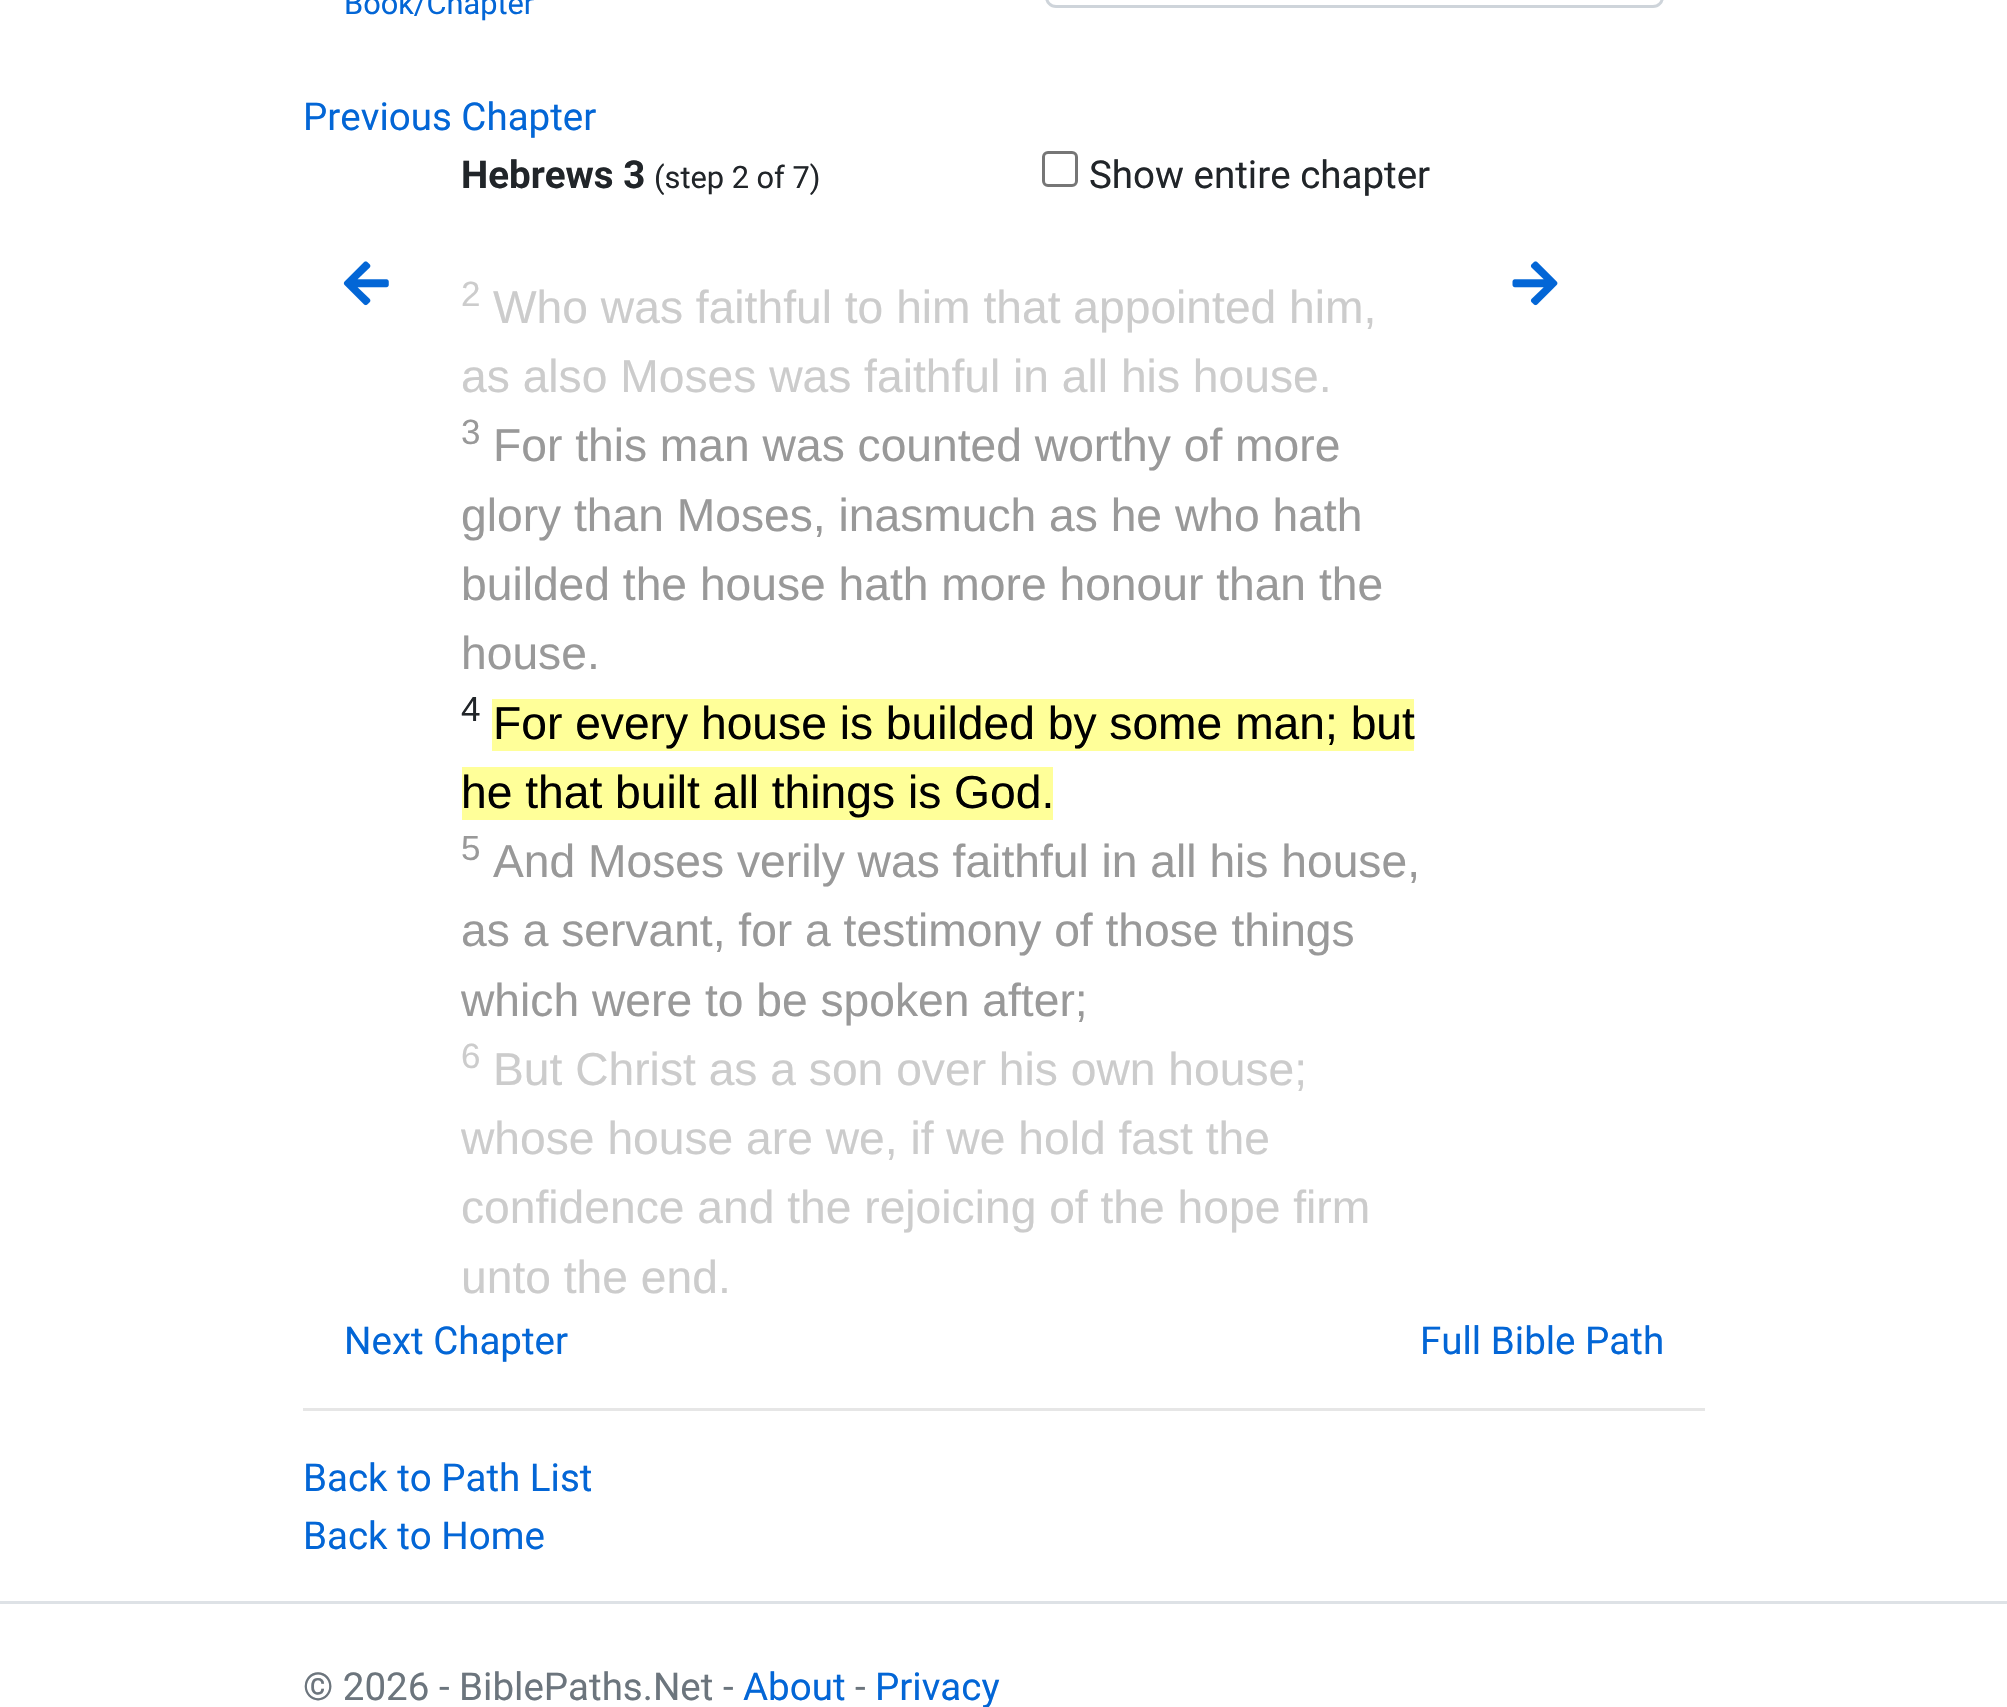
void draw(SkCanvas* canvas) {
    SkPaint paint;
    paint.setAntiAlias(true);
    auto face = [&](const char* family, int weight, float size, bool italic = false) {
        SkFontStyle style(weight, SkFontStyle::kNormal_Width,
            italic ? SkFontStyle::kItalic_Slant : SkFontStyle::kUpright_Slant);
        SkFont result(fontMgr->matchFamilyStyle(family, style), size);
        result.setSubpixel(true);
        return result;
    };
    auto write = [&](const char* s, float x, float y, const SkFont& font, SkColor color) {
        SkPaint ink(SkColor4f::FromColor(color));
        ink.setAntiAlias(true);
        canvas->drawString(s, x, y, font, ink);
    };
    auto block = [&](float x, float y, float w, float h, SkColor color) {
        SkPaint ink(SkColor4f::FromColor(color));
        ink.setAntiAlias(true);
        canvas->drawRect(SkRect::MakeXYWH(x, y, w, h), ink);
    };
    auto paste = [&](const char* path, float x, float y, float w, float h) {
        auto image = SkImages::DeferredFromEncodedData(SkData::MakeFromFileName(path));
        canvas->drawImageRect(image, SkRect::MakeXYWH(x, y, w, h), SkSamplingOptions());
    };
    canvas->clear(SK_ColorWHITE);
    paint.setStyle(SkPaint::kStroke_Style);
    paint.setStrokeWidth(3);
    paint.setColor(SkColorSetRGB(206, 212, 218));
    canvas->drawRoundRect(SkRect::MakeXYWH(1046.5f, -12.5f, 616, 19), 9.5f, 9.5f, paint);
    auto kFont1 = face("Roboto", 400, 30.75f);
    write("Book/Chapter", 344, 14, kFont1, SkColorSetRGB(3, 102, 214));
    auto kFont2 = face("Roboto", 400, 38.5f);
    write("Previous Chapter", 303, 130, kFont2, SkColorSetRGB(3, 102, 214));
    auto kFont3 = face("Roboto", 700, 38.5f);
    write("Hebrews 3", 461, 188, kFont3, SkColorSetRGB(33, 37, 41));
    write("(step 2 of 7)", 654, 188, kFont1, SkColorSetRGB(33, 37, 41));
    paint.setColor(SkColorSetRGB(118, 118, 118));
    canvas->drawRoundRect(SkRect::MakeXYWH(1043.5f, 152.5f, 33, 33), 4.5f, 4.5f, paint);
    write("Show entire chapter", 1089, 188, kFont2, SkColorSetRGB(33, 37, 41));
    paste("pic1.png", 343, 261, 46, 45);
    auto kFont4 = face("Liberation Sans", 400, 35);
    write("2", 461, 306, kFont4, SkColorSetRGB(204, 204, 204));
    auto kFont5 = face("Liberation Sans", 400, 46.2f);
    write("Who was faithful to him that appointed him,", 493, 323, kFont5, SkColorSetRGB(204, 204, 204));
    write("as also Moses was faithful in all his house.", 461, 392, kFont5, SkColorSetRGB(204, 204, 204));
    write("3", 461, 444, kFont4, SkColorSetRGB(153, 153, 153));
    write("For this man was counted worthy of more", 493, 461, kFont5, SkColorSetRGB(153, 153, 153));
    write("glory than Moses, inasmuch as he who hath", 461, 531, kFont5, SkColorSetRGB(153, 153, 153));
    write("builded the house hath more honour than the", 461, 600, kFont5, SkColorSetRGB(153, 153, 153));
    write("house.", 461, 669, kFont5, SkColorSetRGB(153, 153, 153));
    write("4", 461, 721, kFont4, SkColorSetRGB(33, 37, 41));
    block(492, 699, 922, 52, SkColorSetRGB(255, 255, 153));
    write("For every house is builded by some man; but", 493, 739, kFont5, SK_ColorBLACK);
    block(462, 767, 591, 53, SkColorSetRGB(255, 255, 153));
    write("he that built all things is God.", 461, 808, kFont5, SK_ColorBLACK);
    write("5", 461, 860, kFont4, SkColorSetRGB(153, 153, 153));
    write("And Moses verily was faithful in all his house,", 493, 877, kFont5, SkColorSetRGB(153, 153, 153));
    write("as a servant, for a testimony of those things", 461, 946, kFont5, SkColorSetRGB(153, 153, 153));
    write("which were to be spoken after;", 461, 1016, kFont5, SkColorSetRGB(153, 153, 153));
    write("6", 461, 1068, kFont4, SkColorSetRGB(204, 204, 204));
    write("But Christ as a son over his own house;", 493, 1085, kFont5, SkColorSetRGB(204, 204, 204));
    write("whose house are we, if we hold fast the", 461, 1154, kFont5, SkColorSetRGB(204, 204, 204));
    write("confidence and the rejoicing of the hope firm", 461, 1223, kFont5, SkColorSetRGB(204, 204, 204));
    write("unto the end.", 461, 1293, kFont5, SkColorSetRGB(204, 204, 204));
    paste("pic2.png", 1512, 261, 46, 45);
    write("Next Chapter", 344, 1354, kFont2, SkColorSetRGB(3, 102, 214));
    write("Full Bible Path", 1420, 1354, kFont2, SkColorSetRGB(3, 102, 214));
    block(303, 1408, 1402, 3, SkColorSetRGB(230, 230, 230));
    write("Back to Path List", 303, 1491, kFont2, SkColorSetRGB(3, 102, 214));
    write("Back to Home", 303, 1549, kFont2, SkColorSetRGB(3, 102, 214));
    block(0, 1601, 2007, 3, SkColorSetRGB(222, 226, 230));
    write("© 2026 - BiblePaths.Net -", 303, 1700, kFont2, SkColorSetRGB(108, 117, 125));
    write("About", 743, 1700, kFont2, SkColorSetRGB(3, 102, 214));
    write("-", 855, 1700, kFont2, SkColorSetRGB(108, 117, 125));
    write("Privacy", 875, 1700, kFont2, SkColorSetRGB(3, 102, 214));
}
